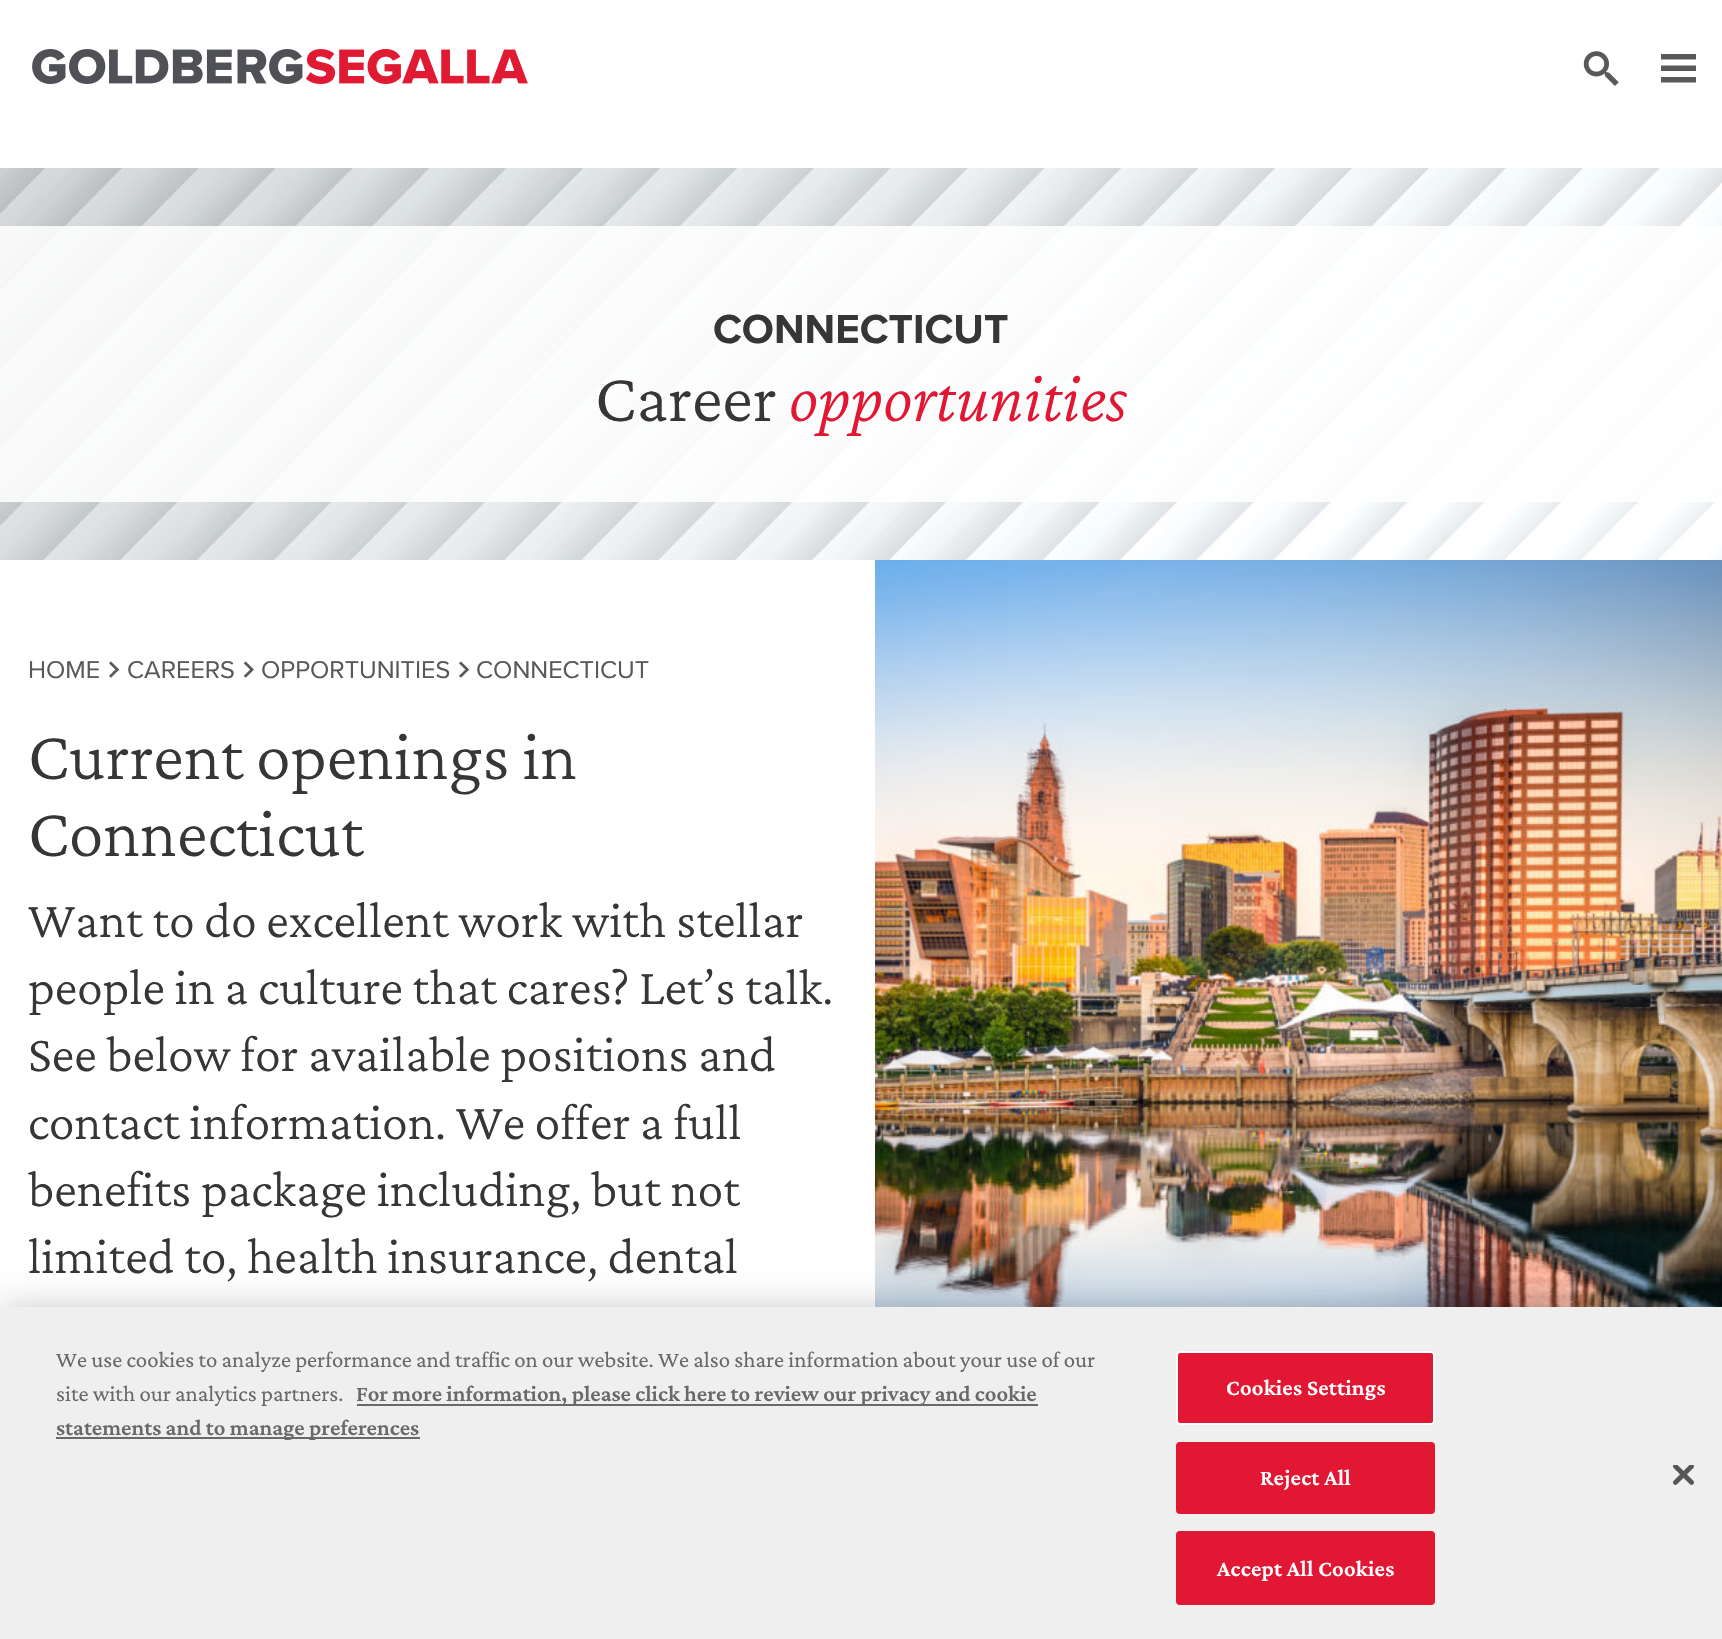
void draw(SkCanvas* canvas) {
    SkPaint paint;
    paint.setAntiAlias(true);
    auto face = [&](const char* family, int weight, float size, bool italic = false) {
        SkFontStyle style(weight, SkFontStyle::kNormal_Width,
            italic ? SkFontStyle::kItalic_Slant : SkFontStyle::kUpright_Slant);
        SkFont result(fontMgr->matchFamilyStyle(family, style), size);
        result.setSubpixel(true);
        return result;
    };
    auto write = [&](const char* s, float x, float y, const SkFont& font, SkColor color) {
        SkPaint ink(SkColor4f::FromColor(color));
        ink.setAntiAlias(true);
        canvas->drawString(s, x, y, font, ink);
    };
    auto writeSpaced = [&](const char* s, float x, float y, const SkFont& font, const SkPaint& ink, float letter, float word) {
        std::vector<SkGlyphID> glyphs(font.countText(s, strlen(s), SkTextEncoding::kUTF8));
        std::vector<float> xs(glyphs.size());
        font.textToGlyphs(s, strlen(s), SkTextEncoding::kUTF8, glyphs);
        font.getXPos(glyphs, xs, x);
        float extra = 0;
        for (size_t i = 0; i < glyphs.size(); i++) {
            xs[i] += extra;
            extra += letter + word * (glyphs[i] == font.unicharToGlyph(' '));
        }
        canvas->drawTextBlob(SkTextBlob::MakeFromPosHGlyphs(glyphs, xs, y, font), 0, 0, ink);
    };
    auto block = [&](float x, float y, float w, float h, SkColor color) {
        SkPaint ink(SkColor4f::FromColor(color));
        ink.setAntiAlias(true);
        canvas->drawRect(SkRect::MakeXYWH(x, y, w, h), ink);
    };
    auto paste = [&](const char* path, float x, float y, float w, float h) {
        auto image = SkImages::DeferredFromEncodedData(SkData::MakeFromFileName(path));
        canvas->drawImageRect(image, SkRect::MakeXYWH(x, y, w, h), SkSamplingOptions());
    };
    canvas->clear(SK_ColorWHITE);
    paste("pic1.png", 32, 49, 496, 35);
    paste("pic2.png", 1583, 51, 36, 35);
    paint.setColor(SkColorSetRGB(88, 89, 91));
    canvas->drawPath(SkPathBuilder().moveTo(1661, 54).lineTo(1696, 54).lineTo(1696, 59.5f).lineTo(1661, 59.5f).close().moveTo(1661, 65.5f).lineTo(1696, 65.5f).lineTo(1696, 71).lineTo(1661, 71).close().moveTo(1661, 77).lineTo(1696, 77).lineTo(1696, 82.5f).lineTo(1661, 82.5f).close().detach(), paint);
    paste("pic3.png", 0, 168, 1722, 392);
    block(0, 226, 1722, 276, SkColorSetARGB(217, 255, 255, 255));
    auto kFont1 = face("Proxima Nova", 700, 42);
    write("CONNECTICUT", 713, 343, kFont1, SkColorSetRGB(54, 54, 54));
    auto kFont2 = face("Crimson Pro", 300, 70);
    write("Career", 595, 421, kFont2, SkColorSetRGB(54, 54, 54));
    auto kFont3 = face("Crimson Pro", 300, 70, true);
    write("opportunities", 789, 421, kFont3, SkColorSetRGB(225, 23, 51));
    auto kFont4 = face("Proxima Nova", 400, 25.25f);
    write("HOME", 28, 678, kFont4, SkColorSetRGB(88, 89, 91));
    paste("pic4.png", 109, 661, 11, 17);
    write("CAREERS", 127, 678, kFont4, SkColorSetRGB(88, 89, 91));
    paste("pic5.png", 243, 661, 11, 17);
    write("OPPORTUNITIES", 261, 678, kFont4, SkColorSetRGB(88, 89, 91));
    paste("pic4.png", 459, 661, 11, 17);
    write("CONNECTICUT", 476, 678, kFont4, SkColorSetRGB(88, 89, 91));
    write("Current openings in", 28, 779, kFont2, SkColorSetRGB(54, 54, 54));
    write("Connecticut", 28, 856, kFont2, SkColorSetRGB(54, 54, 54));
    auto kFont5 = face("Crimson Pro", 300, 51.75f);
    write("Want to do excellent work with stellar", 28, 937, kFont5, SkColorSetRGB(54, 54, 54));
    write("people in a culture that cares? Let’s talk.", 28, 1004, kFont5, SkColorSetRGB(54, 54, 54));
    write("See below for available positions and", 28, 1071, kFont5, SkColorSetRGB(54, 54, 54));
    write("contact information. We offer a full", 28, 1139, kFont5, SkColorSetRGB(54, 54, 54));
    write("benefits package including, but not", 28, 1206, kFont5, SkColorSetRGB(54, 54, 54));
    write("limited to, health insurance, dental", 28, 1273, kFont5, SkColorSetRGB(54, 54, 54));
    paste("pic6.png", 875, 560, 847, 747);
    paint.setColor(SkColorSetARGB(51, 0, 0, 0));
    paint.setMaskFilter(SkMaskFilter::MakeBlur(kNormal_SkBlurStyle, 16));
    canvas->drawRect(SkRect::MakeXYWH(0, 1307, 1722, 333), paint);
    paint.setMaskFilter(nullptr);
    block(0, 1307, 1722, 332, SkColorSetRGB(239, 239, 239));
    auto kFont6 = face("Crimson Pro", 400, 22.75f);
    write("We use cookies to analyze performance and traffic on our website. We also share information about your use of our", 56, 1367, kFont6, SkColorSetRGB(105, 105, 105));
    write("site with our analytics partners.", 56, 1401, kFont6, SkColorSetRGB(105, 105, 105));
    block(357, 1404, 681, 2, SkColorSetRGB(105, 105, 105));
    auto kFont7 = face("Crimson Pro", 600, 22.75f);
    write("For more information, please click here to review our privacy and cookie", 356, 1401, kFont7, SkColorSetRGB(105, 105, 105));
    block(56, 1437, 364, 2, SkColorSetRGB(105, 105, 105));
    write("statements and to manage preferences", 56, 1435, kFont7, SkColorSetRGB(105, 105, 105));
    paint.setColor(SkColorSetRGB(225, 23, 51));
    canvas->drawRoundRect(SkRect::MakeXYWH(1177, 1352, 257, 72), 3, 3, paint);
    paint.setStyle(SkPaint::kStroke_Style);
    paint.setStrokeWidth(2);
    paint.setColor(SK_ColorWHITE);
    canvas->drawRoundRect(SkRect::MakeXYWH(1177, 1352, 257, 72), 3, 3, paint);
    paint.setStyle(SkPaint::kFill_Style);
    writeSpaced("Cookies Settings", 1226, 1395, kFont7, paint, 0.25f, 0);
    paint.setColor(SkColorSetRGB(225, 23, 51));
    canvas->drawRoundRect(SkRect::MakeXYWH(1177, 1443, 257, 70), 3, 3, paint);
    paint.setStyle(SkPaint::kStroke_Style);
    canvas->drawRoundRect(SkRect::MakeXYWH(1177, 1443, 257, 70), 3, 3, paint);
    paint.setStyle(SkPaint::kFill_Style);
    paint.setColor(SK_ColorWHITE);
    writeSpaced("Reject All", 1260, 1485, kFont7, paint, 0.25f, 0);
    paint.setColor(SkColorSetRGB(225, 23, 51));
    canvas->drawRoundRect(SkRect::MakeXYWH(1177, 1532, 257, 72), 3, 3, paint);
    paint.setStyle(SkPaint::kStroke_Style);
    canvas->drawRoundRect(SkRect::MakeXYWH(1177, 1532, 257, 72), 3, 3, paint);
    paint.setStyle(SkPaint::kFill_Style);
    paint.setColor(SK_ColorWHITE);
    writeSpaced("Accept All Cookies", 1217, 1576, kFont7, paint, 0.25f, 0);
    paste("pic7.png", 1673, 1465, 21, 20);
}
